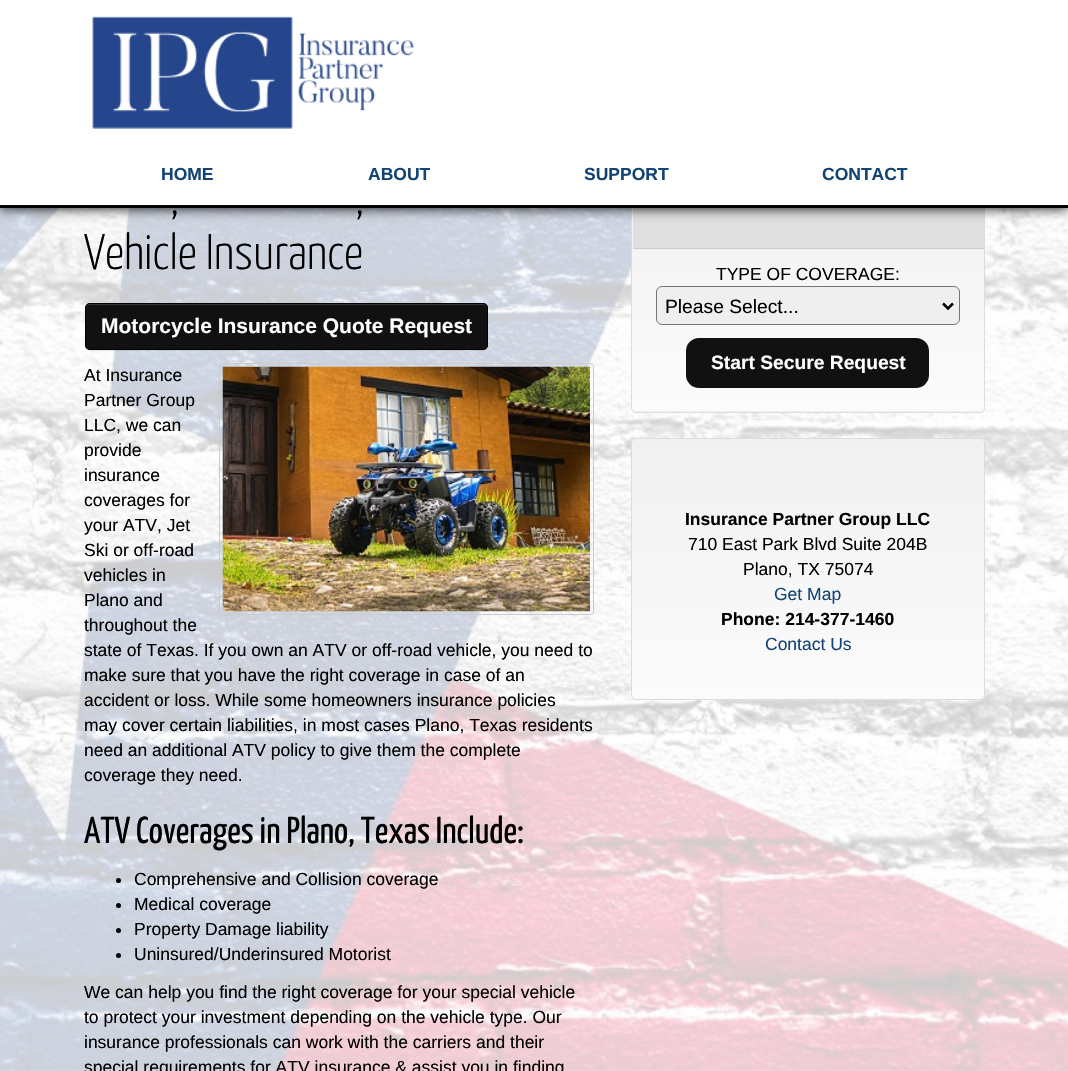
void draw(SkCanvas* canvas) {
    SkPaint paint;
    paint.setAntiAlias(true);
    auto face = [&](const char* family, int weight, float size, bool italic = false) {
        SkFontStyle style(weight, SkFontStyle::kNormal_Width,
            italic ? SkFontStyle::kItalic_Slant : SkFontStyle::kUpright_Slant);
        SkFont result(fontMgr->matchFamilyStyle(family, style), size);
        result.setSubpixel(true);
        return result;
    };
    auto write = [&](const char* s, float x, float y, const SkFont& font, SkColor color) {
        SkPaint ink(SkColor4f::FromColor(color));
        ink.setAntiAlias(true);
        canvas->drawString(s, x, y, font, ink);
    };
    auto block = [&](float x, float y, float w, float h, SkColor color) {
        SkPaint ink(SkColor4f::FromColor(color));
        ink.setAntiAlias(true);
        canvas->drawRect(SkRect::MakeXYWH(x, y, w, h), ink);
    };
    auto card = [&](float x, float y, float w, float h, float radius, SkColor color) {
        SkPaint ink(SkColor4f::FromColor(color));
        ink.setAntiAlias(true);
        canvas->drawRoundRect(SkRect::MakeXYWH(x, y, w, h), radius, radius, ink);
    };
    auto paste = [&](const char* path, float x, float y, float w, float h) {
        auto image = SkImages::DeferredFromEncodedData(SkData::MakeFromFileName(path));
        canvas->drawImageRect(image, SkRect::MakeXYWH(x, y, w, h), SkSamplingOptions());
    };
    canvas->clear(SK_ColorWHITE);
    paste("pic2.png", 0, 208, 1068, 863);
    canvas->save();
    canvas->clipPath(SkPathBuilder().moveTo(636, 168).lineTo(980, 168).cubicTo(983, 168, 985, 170, 985, 173).lineTo(985, 408).cubicTo(985, 411, 983, 413, 980, 413).lineTo(636, 413).cubicTo(633, 413, 631, 411, 631, 408).lineTo(631, 173).cubicTo(631, 170, 633, 168, 636, 168).close().detach(), true);
    {
        const SkColor colors[] = {SkColorSetRGB(241, 241, 241), SkColorSetRGB(251, 251, 251)};
        const float stops[] = {0, 1};
        const SkPoint ends[] = {{808, 169}, {808, 411}};
        paint.setShader(SkGradientShader::MakeLinear(ends, colors, stops, 2, SkTileMode::kClamp));
        paint.setAlpha(255);
    }
    canvas->drawRect(SkRect::MakeXYWH(631, 208, 354, 203), paint);
    {
        const SkColor colors[] = {SkColorSetRGB(241, 241, 241), SkColorSetRGB(251, 251, 251)};
        const float stops[] = {0, 1};
        const SkPoint ends[] = {{808, 411}, {808, 654}};
        paint.setShader(SkGradientShader::MakeLinear(ends, colors, stops, 2, SkTileMode::kClamp));
        paint.setAlpha(255);
    }
    canvas->drawRect(SkRect::MakeXYWH(631, 411, 354, 2), paint);
    canvas->restore();
    paint.setStyle(SkPaint::kStroke_Style);
    paint.setStrokeWidth(1);
    paint.setShader(nullptr);
    paint.setColor(SkColorSetRGB(220, 220, 220));
    canvas->drawRoundRect(SkRect::MakeXYWH(631.5f, 168.5f, 353, 244), 4.5f, 4.5f, paint);
    block(633, 208, 351, 40, SkColorSetRGB(223, 223, 223));
    paint.setStyle(SkPaint::kFill_Style);
    paint.setColor(SK_ColorBLACK);
    paint.setMaskFilter(SkMaskFilter::MakeBlur(kNormal_SkBlurStyle, 6));
    canvas->drawRect(SkRect::MakeXYWH(0, 0, 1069, 208), paint);
    paint.setMaskFilter(nullptr);
    block(0, 0, 1068, 205, SK_ColorWHITE);
    block(0, 205, 1068, 3, SK_ColorBLACK);
    paste("pic1.png", 92, 16, 322, 113);
    auto kFont1 = face("Liberation Sans", 700, 17.5f);
    write("HOME", 161, 180, kFont1, SkColorSetRGB(18, 68, 117));
    write("ABOUT", 368, 180, kFont1, SkColorSetRGB(18, 68, 117));
    write("SUPPORT", 584, 180, kFont1, SkColorSetRGB(18, 68, 117));
    write("CONTACT", 822, 180, kFont1, SkColorSetRGB(18, 68, 117));
    auto kFont2 = face("Yanone Kaffeesatz", 300, 50);
    write(",", 170, 214, kFont2, SK_ColorBLACK);
    write(",", 355, 214, kFont2, SK_ColorBLACK);
    write("Vehicle Insurance", 84, 269, kFont2, SK_ColorBLACK);
    paint.setColor(SkColorSetARGB(18, 0, 0, 0));
    paint.setMaskFilter(SkMaskFilter::MakeBlur(kNormal_SkBlurStyle, 0.5f));
    canvas->drawRoundRect(SkRect::MakeXYWH(85, 304, 403, 47), 5, 5, paint);
    paint.setMaskFilter(nullptr);
    card(85, 303, 403, 47, 5, SkColorSetRGB(17, 17, 17));
    paint.setColor(SkColorSetRGB(53, 53, 53));
    canvas->drawPath(SkPathBuilder().moveTo(90, 305).lineTo(482, 305).cubicTo(485, 305, 486, 307, 486, 309).cubicTo(486, 306, 485, 304, 482, 304).lineTo(90, 304).cubicTo(87, 304, 86, 306, 86, 309).cubicTo(86, 307, 88, 305, 90, 305).close().detach(), paint);
    paint.setStyle(SkPaint::kStroke_Style);
    paint.setColor(SK_ColorBLACK);
    canvas->drawRoundRect(SkRect::MakeXYWH(85.5f, 303.5f, 402, 46), 4.5f, 4.5f, paint);
    auto kFont3 = face("Liberation Sans", 700, 21);
    write("Motorcycle Insurance Quote Request", 101, 333, kFont3, SK_ColorWHITE);
    paint.setColor(SkColorSetRGB(204, 204, 204));
    canvas->drawRoundRect(SkRect::MakeXYWH(219.5f, 363.5f, 374, 251), 3.5f, 3.5f, paint);
    paste("pic3.png", 222, 366, 368, 246);
    auto kFont4 = face("Liberation Sans", 400, 17.5f);
    write("At Insurance", 84, 381, kFont4, SK_ColorBLACK);
    write("Partner Group", 84, 406, kFont4, SK_ColorBLACK);
    write("LLC, we can", 84, 431, kFont4, SK_ColorBLACK);
    write("provide", 84, 456, kFont4, SK_ColorBLACK);
    write("insurance", 84, 481, kFont4, SK_ColorBLACK);
    write("coverages for", 84, 506, kFont4, SK_ColorBLACK);
    write("your ATV, Jet", 84, 531, kFont4, SK_ColorBLACK);
    write("Ski or off-road", 84, 556, kFont4, SK_ColorBLACK);
    write("vehicles in", 84, 581, kFont4, SK_ColorBLACK);
    write("Plano and", 84, 606, kFont4, SK_ColorBLACK);
    write("throughout the", 84, 631, kFont4, SK_ColorBLACK);
    write("state of Texas. If you own an ATV or off-road vehicle, you need to", 84, 656, kFont4, SK_ColorBLACK);
    write("make sure that you have the right coverage in case of an", 84, 681, kFont4, SK_ColorBLACK);
    write("accident or loss. While some homeowners insurance policies", 84, 706, kFont4, SK_ColorBLACK);
    write("may cover certain liabilities, in most cases Plano, Texas residents", 84, 731, kFont4, SK_ColorBLACK);
    write("need an additional ATV policy to give them the complete", 84, 756, kFont4, SK_ColorBLACK);
    write("coverage they need.", 84, 781, kFont4, SK_ColorBLACK);
    auto kFont5 = face("Yanone Kaffeesatz", 400, 37.5f);
    write("ATV Coverages in Plano, Texas Include:", 84, 843, kFont5, SK_ColorBLACK);
    paint.setStyle(SkPaint::kFill_Style);
    paint.setColor(SK_ColorBLACK);
    canvas->drawCircle(118.5f, 880.5f, 2.5f, paint);
    write("Comprehensive and Collision coverage", 134, 885, kFont4, SK_ColorBLACK);
    canvas->drawCircle(118.5f, 905.5f, 2.5f, paint);
    write("Medical coverage", 134, 910, kFont4, SK_ColorBLACK);
    canvas->drawCircle(118.5f, 930.5f, 2.5f, paint);
    write("Property Damage liability", 134, 935, kFont4, SK_ColorBLACK);
    canvas->drawCircle(118.5f, 955.5f, 2.5f, paint);
    write("Uninsured/Underinsured Motorist", 134, 960, kFont4, SK_ColorBLACK);
    write("We can help you find the right coverage for your special vehicle", 84, 998, kFont4, SK_ColorBLACK);
    write("to protect your investment depending on the vehicle type. Our", 84, 1023, kFont4, SK_ColorBLACK);
    write("insurance professionals can work with the carriers and their", 84, 1048, kFont4, SK_ColorBLACK);
    write("special requirements for ATV insurance & assist you in finding", 84, 1073, kFont4, SK_ColorBLACK);
    block(633, 248, 351, 1, SkColorSetRGB(204, 204, 204));
    write("TYPE OF COVERAGE:", 716, 280, kFont4, SK_ColorBLACK);
    paint.setColor(SkColorSetRGB(239, 239, 239));
    canvas->drawRoundRect(SkRect::MakeXYWH(656.5f, 286.5f, 303, 38), 5.5f, 5.5f, paint);
    paint.setStyle(SkPaint::kStroke_Style);
    paint.setColor(SkColorSetRGB(118, 118, 118));
    canvas->drawRoundRect(SkRect::MakeXYWH(656.5f, 286.5f, 303, 38), 5.5f, 5.5f, paint);
    paint.setStrokeWidth(2.5f);
    paint.setColor(SK_ColorBLACK);
    canvas->drawPath(SkPathBuilder().moveTo(943, 303.5f).lineTo(948, 308.5f).lineTo(953, 303.5f).detach(), paint);
    auto kFont6 = face("Liberation Sans", 400, 19.25f);
    write("Please Select...", 665, 313, kFont6, SK_ColorBLACK);
    paint.setStyle(SkPaint::kFill_Style);
    paint.setColor(SkColorSetRGB(17, 17, 17));
    canvas->drawRoundRect(SkRect::MakeXYWH(687.5f, 339.5f, 240, 47), 11.5f, 11.5f, paint);
    paint.setStyle(SkPaint::kStroke_Style);
    paint.setStrokeWidth(3);
    canvas->drawRoundRect(SkRect::MakeXYWH(687.5f, 339.5f, 240, 47), 11.5f, 11.5f, paint);
    auto kFont7 = face("Liberation Sans", 700, 19.25f);
    write("Start Secure Request", 711, 369, kFont7, SK_ColorWHITE);
    paint.setStyle(SkPaint::kFill_Style);
    paint.setColor(SkColorSetARGB(26, 255, 255, 255));
    canvas->drawPath(SkPathBuilder().moveTo(631, 442).lineTo(631, 696).cubicTo(631, 699, 633, 701, 636, 701).lineTo(980, 701).cubicTo(983, 701, 985, 699, 985, 696).lineTo(985, 695).cubicTo(985, 698, 983, 700, 980, 700).lineTo(636, 700).cubicTo(633, 700, 631, 698, 631, 695).close().detach(), paint);
    canvas->save();
    canvas->clipPath(SkPathBuilder().moveTo(636, 438).lineTo(980, 438).cubicTo(983, 438, 985, 440, 985, 443).lineTo(985, 695).cubicTo(985, 698, 983, 700, 980, 700).lineTo(636, 700).cubicTo(633, 700, 631, 698, 631, 695).lineTo(631, 443).cubicTo(631, 440, 633, 438, 636, 438).close().detach(), true);
    {
        const SkColor colors[] = {SkColorSetRGB(241, 241, 241), SkColorSetRGB(251, 251, 251)};
        const float stops[] = {0, 1};
        const SkPoint ends[] = {{808, 439}, {808, 699}};
        paint.setShader(SkGradientShader::MakeLinear(ends, colors, stops, 2, SkTileMode::kClamp));
        paint.setAlpha(255);
    }
    canvas->drawRect(SkRect::MakeXYWH(631, 439, 354, 260), paint);
    canvas->restore();
    paint.setStyle(SkPaint::kStroke_Style);
    paint.setStrokeWidth(1);
    paint.setShader(nullptr);
    paint.setColor(SkColorSetRGB(220, 220, 220));
    canvas->drawRoundRect(SkRect::MakeXYWH(631.5f, 438.5f, 353, 261), 4.5f, 4.5f, paint);
    write("Insurance Partner Group LLC", 685, 525, kFont1, SK_ColorBLACK);
    write("710 East Park Blvd Suite 204B", 688, 550, kFont4, SK_ColorBLACK);
    write("Plano, TX 75074", 743, 575, kFont4, SK_ColorBLACK);
    write("Get Map", 774, 600, kFont4, SkColorSetRGB(18, 68, 117));
    write("Phone: 214-377-1460", 721, 625, kFont1, SK_ColorBLACK);
    write("Contact Us", 765, 650, kFont4, SkColorSetRGB(18, 68, 117));
}
